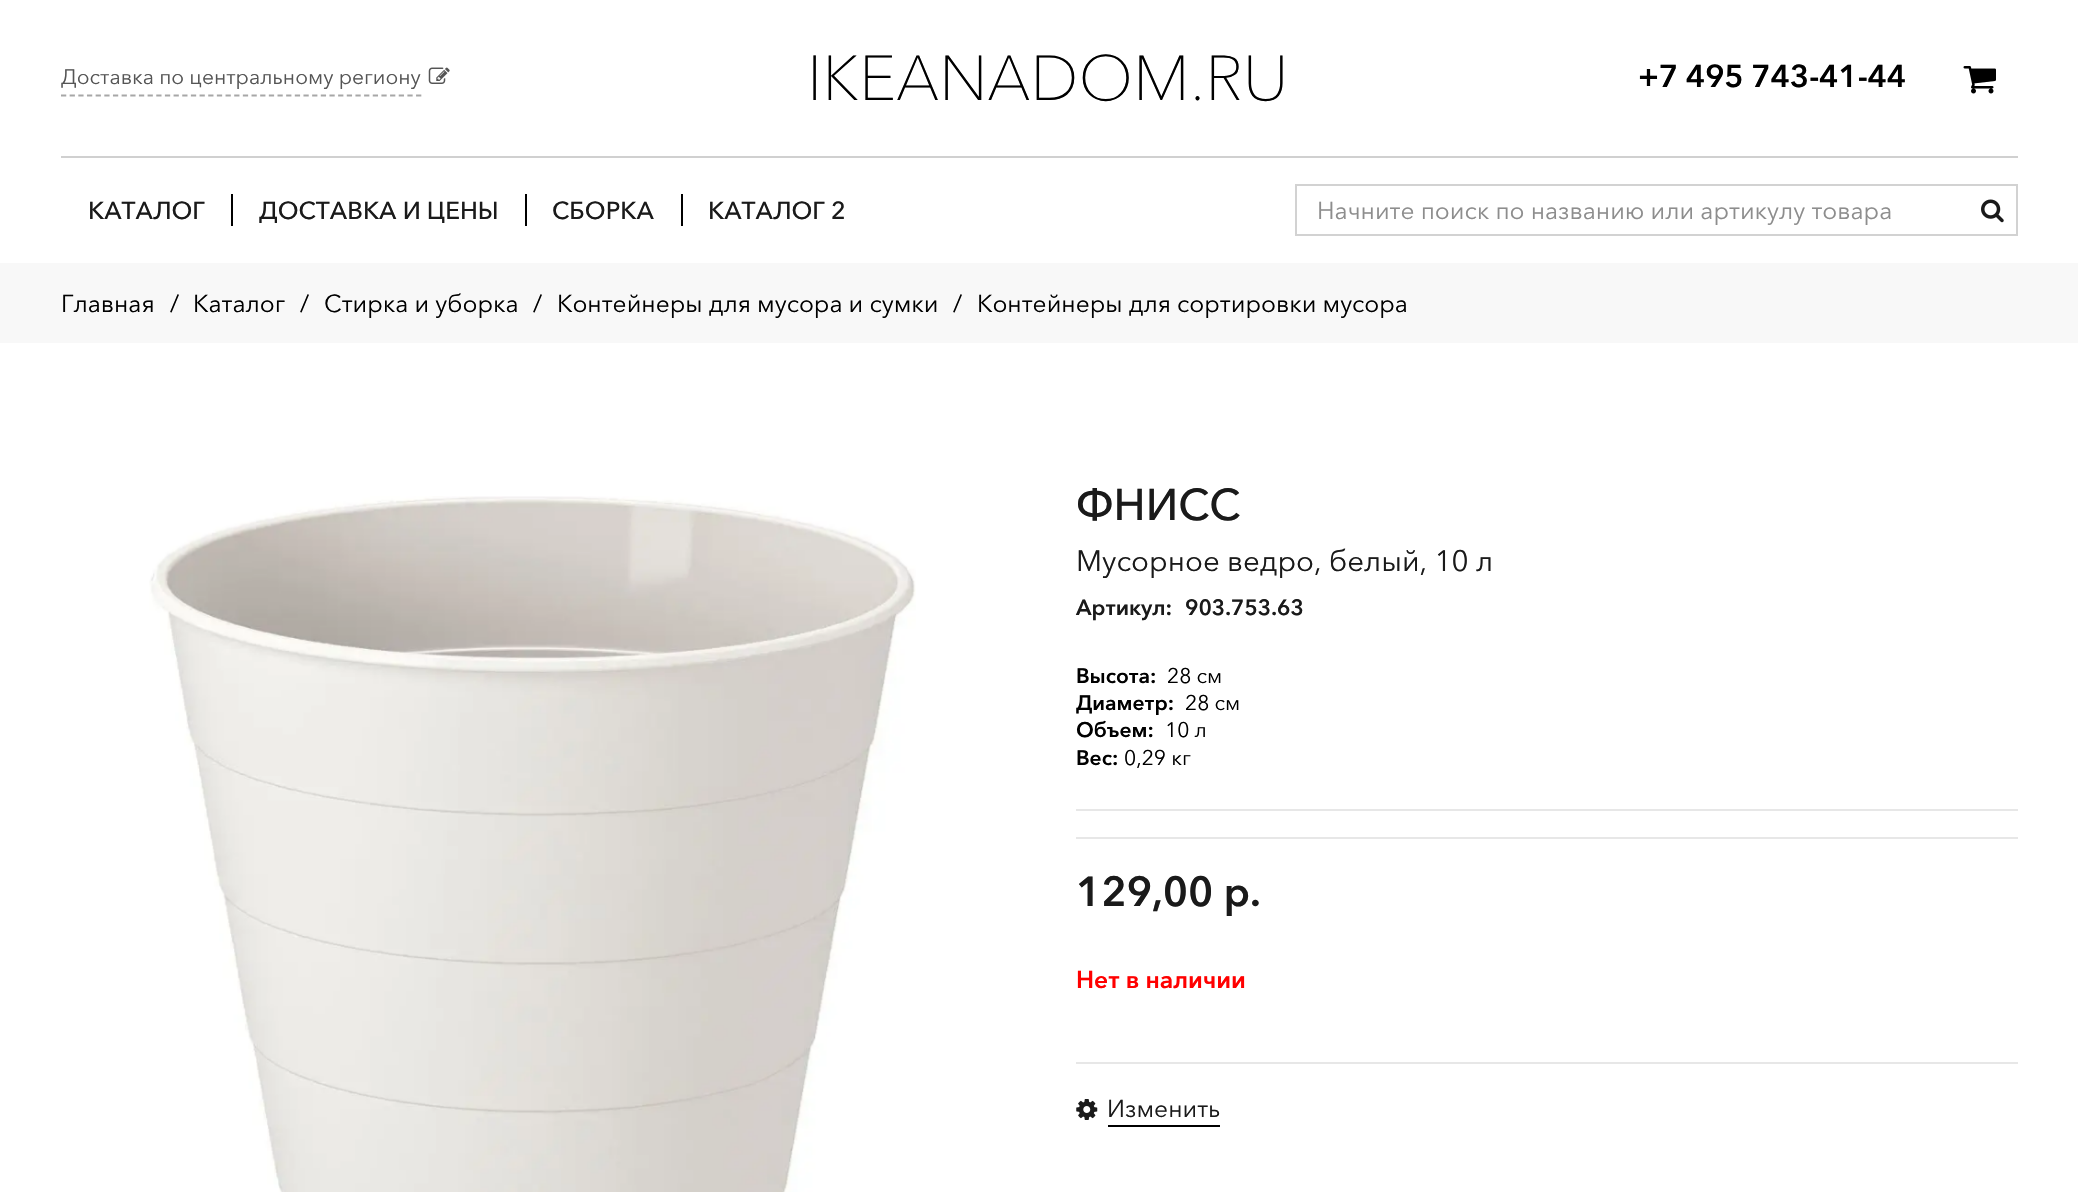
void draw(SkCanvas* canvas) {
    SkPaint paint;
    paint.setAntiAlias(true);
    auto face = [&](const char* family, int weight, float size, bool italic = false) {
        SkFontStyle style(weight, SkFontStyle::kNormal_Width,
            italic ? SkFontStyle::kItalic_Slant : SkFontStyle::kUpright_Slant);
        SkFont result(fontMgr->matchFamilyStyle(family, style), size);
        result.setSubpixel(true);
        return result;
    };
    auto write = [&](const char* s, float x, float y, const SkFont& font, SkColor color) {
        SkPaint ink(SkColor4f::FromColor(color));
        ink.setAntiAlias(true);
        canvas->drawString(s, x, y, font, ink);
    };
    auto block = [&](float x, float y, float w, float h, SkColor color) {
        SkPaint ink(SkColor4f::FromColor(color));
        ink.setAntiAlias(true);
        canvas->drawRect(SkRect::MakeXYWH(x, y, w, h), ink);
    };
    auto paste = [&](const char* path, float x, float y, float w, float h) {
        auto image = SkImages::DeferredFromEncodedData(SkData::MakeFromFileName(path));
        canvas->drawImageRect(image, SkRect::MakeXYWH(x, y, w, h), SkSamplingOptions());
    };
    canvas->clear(SK_ColorWHITE);
    block(61, 156, 1957, 2, SkColorSetRGB(208, 208, 208));
    paint.setStyle(SkPaint::kStroke_Style);
    paint.setStrokeWidth(1.8f);
    paint.setColor(SkColorSetRGB(167, 167, 167));
    paint.setPathEffect(SkDashPathEffect::Make({{5.25f, 3.41f}}, 0));
    canvas->drawPath(SkPathBuilder().moveTo(61, 95.5f).lineTo(422, 95.5f).detach(), paint);
    paint.setPathEffect(nullptr);
    auto kFont1 = face("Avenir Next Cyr", 400, 21);
    write("Доставка по центральному региону", 61, 84, kFont1, SkColorSetRGB(85, 85, 85));
    paste("pic1.png", 428, 67, 22, 17);
    auto kFont2 = face("Avenir Next Cyr", 100, 63);
    write("IKEANADOM.RU", 807, 100, kFont2, SK_ColorBLACK);
    auto kFont3 = face("Avenir Next Cyr", 700, 31.5f);
    write("+7 495 743-41-44", 1638, 87, kFont3, SK_ColorBLACK);
    paste("pic2.png", 1963, 66, 33, 28);
    auto kFont4 = face("Avenir Next Cyr", 500, 24.5f);
    write("КАТАЛОГ", 88, 219, kFont4, SkColorSetRGB(26, 26, 26));
    block(231, 194, 2, 32, SK_ColorBLACK);
    write("ДОСТАВКА И ЦЕНЫ", 259, 219, kFont4, SkColorSetRGB(26, 26, 26));
    block(525, 194, 2, 32, SK_ColorBLACK);
    write("СБОРКА", 552, 219, kFont4, SkColorSetRGB(26, 26, 26));
    block(681, 194, 2, 32, SK_ColorBLACK);
    write("КАТАЛОГ 2", 708, 219, kFont4, SkColorSetRGB(26, 26, 26));
    paint.setStrokeWidth(2);
    paint.setColor(SkColorSetRGB(210, 210, 210));
    canvas->drawRect(SkRect::MakeXYWH(1296, 185, 721, 50), paint);
    auto kFont5 = face("Avenir Next Cyr", 400, 24.5f);
    write("Начните поиск по названию или артикулу товара", 1317, 219, kFont5, SkColorSetRGB(141, 141, 141));
    paste("pic3.png", 1981, 199, 23, 24);
    block(0, 263, 2078, 80, SkColorSetRGB(248, 248, 248));
    write("Главная", 61, 312, kFont5, SK_ColorBLACK);
    write("/", 170, 312, kFont5, SK_ColorBLACK);
    write("Каталог", 193, 312, kFont5, SK_ColorBLACK);
    write("/", 300, 312, kFont5, SK_ColorBLACK);
    write("Стирка и уборка", 324, 312, kFont5, SK_ColorBLACK);
    write("/", 533, 312, kFont5, SK_ColorBLACK);
    write("Контейнеры для мусора и сумки", 557, 312, kFont5, SK_ColorBLACK);
    write("/", 953, 312, kFont5, SK_ColorBLACK);
    write("Контейнеры для сортировки мусора", 977, 312, kFont5, SK_ColorBLACK);
    paste("pic4.png", 149, 496, 767, 696);
    auto kFont6 = face("Avenir Next Cyr", 500, 44);
    write("ФНИСС", 1076, 520, kFont6, SkColorSetRGB(26, 26, 26));
    auto kFont7 = face("Avenir Next Cyr", 400, 29.4f);
    write("Мусорное ведро, белый, 10 л", 1076, 571, kFont7, SkColorSetRGB(26, 26, 26));
    auto kFont8 = face("Avenir Next Cyr", 700, 22);
    write("Артикул:", 1076, 615, kFont8, SkColorSetRGB(26, 26, 26));
    write("903.753.63", 1185, 615, kFont8, SkColorSetRGB(26, 26, 26));
    auto kFont9 = face("Avenir Next Cyr", 700, 21);
    write("Высота:", 1076, 683, kFont9, SK_ColorBLACK);
    write("28 см", 1167, 683, kFont1, SK_ColorBLACK);
    write("Диаметр:", 1076, 710, kFont9, SK_ColorBLACK);
    write("28 см", 1185, 710, kFont1, SK_ColorBLACK);
    write("Объем:", 1076, 737, kFont9, SK_ColorBLACK);
    write("10 л", 1165, 737, kFont1, SK_ColorBLACK);
    write("Вес:", 1076, 765, kFont9, SK_ColorBLACK);
    write("0,29 кг", 1124, 765, kFont1, SK_ColorBLACK);
    block(1076, 809, 942, 2, SkColorSetRGB(231, 231, 231));
    block(1076, 837, 942, 2, SkColorSetRGB(231, 231, 231));
    auto kFont10 = face("Avenir Next Cyr", 700, 41.5f);
    write("129,00 р.", 1076, 906, kFont10, SkColorSetRGB(26, 26, 26));
    block(1076, 1062, 942, 2, SkColorSetRGB(231, 231, 231));
    auto kFont11 = face("Avenir Next Cyr", 700, 24.5f);
    write("Нет в наличии", 1076, 988, kFont11, SkColorSetRGB(255, 0, 0));
    paste("pic5.png", 1076, 1099, 22, 21);
    write("Изменить", 1107, 1117, kFont5, SkColorSetRGB(26, 26, 26));
    block(1108, 1125, 112, 2, SK_ColorBLACK);
}
